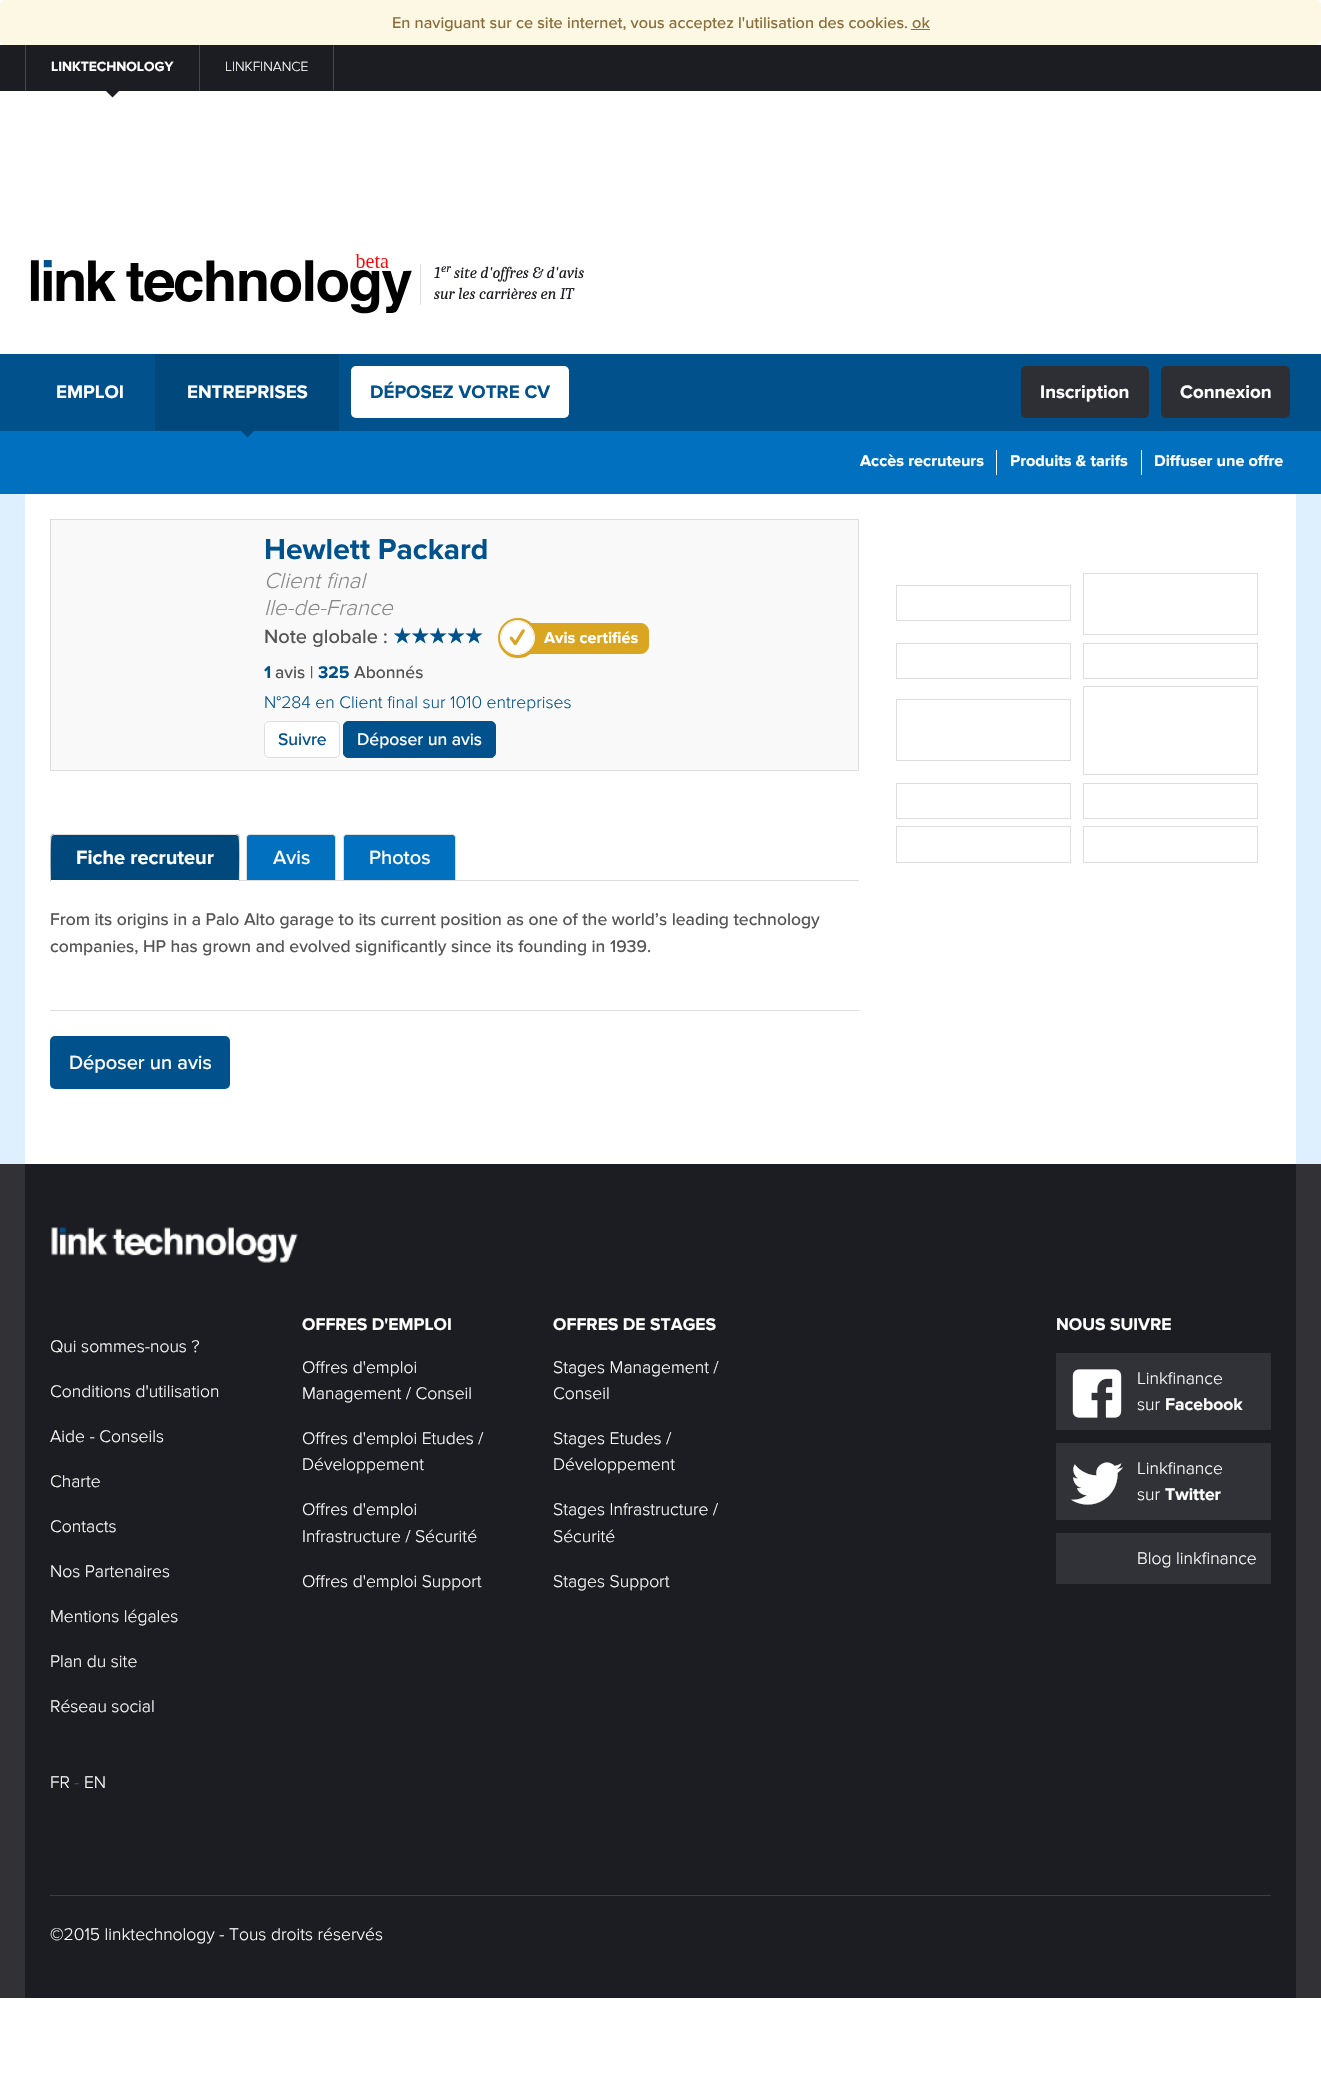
void draw(SkCanvas* canvas) {
    SkPaint paint;
    paint.setAntiAlias(true);
    auto face = [&](const char* family, int weight, float size, bool italic = false) {
        SkFontStyle style(weight, SkFontStyle::kNormal_Width,
            italic ? SkFontStyle::kItalic_Slant : SkFontStyle::kUpright_Slant);
        SkFont result(fontMgr->matchFamilyStyle(family, style), size);
        result.setSubpixel(true);
        return result;
    };
    auto write = [&](const char* s, float x, float y, const SkFont& font, SkColor color) {
        SkPaint ink(SkColor4f::FromColor(color));
        ink.setAntiAlias(true);
        canvas->drawString(s, x, y, font, ink);
    };
    auto block = [&](float x, float y, float w, float h, SkColor color) {
        SkPaint ink(SkColor4f::FromColor(color));
        ink.setAntiAlias(true);
        canvas->drawRect(SkRect::MakeXYWH(x, y, w, h), ink);
    };
    auto card = [&](float x, float y, float w, float h, float radius, SkColor color) {
        SkPaint ink(SkColor4f::FromColor(color));
        ink.setAntiAlias(true);
        canvas->drawRoundRect(SkRect::MakeXYWH(x, y, w, h), radius, radius, ink);
    };
    auto paste = [&](const char* path, float x, float y, float w, float h) {
        auto image = SkImages::DeferredFromEncodedData(SkData::MakeFromFileName(path));
        canvas->drawImageRect(image, SkRect::MakeXYWH(x, y, w, h), SkSamplingOptions());
    };
    canvas->clear(SK_ColorWHITE);
    card(0, 0, 1321, 45, 5, SkColorSetRGB(252, 248, 227));
    auto kFont1 = face("Proxima Nova", 500, 16.25f);
    write("En naviguant sur ce site internet, vous acceptez l'utilisation des cookies. ok", 392, 28, kFont1, SkColorSetRGB(138, 109, 59));
    block(911, 29, 19, 1, SkColorSetRGB(138, 109, 59));
    block(0, 45, 1321, 46, SkColorSetRGB(28, 29, 34));
    block(333, 45, 1, 46, SkColorSetRGB(70, 71, 77));
    block(25, 45, 1, 46, SkColorSetRGB(70, 71, 77));
    auto kFont2 = face("Proxima Nova", 700, 13.75f);
    write("LINKTECHNOLOGY", 51, 71, kFont2, SK_ColorWHITE);
    paint.setColor(SkColorSetRGB(28, 29, 34));
    canvas->drawPath(SkPathBuilder().moveTo(106, 91).lineTo(119, 91).lineTo(112.5f, 97.5f).close().detach(), paint);
    block(199, 45, 1, 46, SkColorSetRGB(70, 71, 77));
    auto kFont3 = face("Proxima Nova", 300, 13.75f);
    write("LINKFINANCE", 225, 71, kFont3, SK_ColorWHITE);
    paste("pic1.png", 30, 254, 382, 60);
    block(420, 264, 1, 41, SkColorSetRGB(221, 221, 221));
    auto kFont4 = face("Caladea", 400, 16.25f, true);
    write("1", 434, 278, kFont4, SkColorSetRGB(28, 29, 34));
    auto kFont5 = face("Caladea", 400, 12, true);
    write("er", 441, 272, kFont5, SkColorSetRGB(28, 29, 34));
    write("site d'offres & d'avis", 454, 278, kFont4, SkColorSetRGB(28, 29, 34));
    write("sur les carrières en IT", 434, 299, kFont4, SkColorSetRGB(28, 29, 34));
    block(0, 354, 1321, 77, SkColorSetRGB(1, 82, 140));
    auto kFont6 = face("Proxima Nova", 700, 18.75f);
    write("EMPLOI", 56, 398, kFont6, SK_ColorWHITE);
    block(155, 354, 184, 77, SkColorSetRGB(1, 73, 125));
    write("ENTREPRISES", 187, 398, kFont6, SK_ColorWHITE);
    block(0, 431, 1321, 63, SkColorSetRGB(1, 112, 191));
    paint.setColor(SkColorSetRGB(1, 73, 125));
    canvas->drawPath(SkPathBuilder().moveTo(241, 431).lineTo(254, 431).lineTo(247.5f, 437.5f).close().detach(), paint);
    card(351, 366, 218, 52, 5, SK_ColorWHITE);
    write("DÉPOSEZ VOTRE CV", 370, 398, kFont6, SkColorSetRGB(1, 82, 140));
    card(1021, 366, 128, 52, 5, SkColorSetRGB(46, 47, 53));
    write("Inscription", 1040, 398, kFont6, SK_ColorWHITE);
    card(1161, 366, 129, 52, 5, SkColorSetRGB(46, 47, 53));
    write("Connexion", 1180, 398, kFont6, SK_ColorWHITE);
    auto kFont7 = face("Proxima Nova", 700, 16.25f);
    write("Accès recruteurs", 860, 466, kFont7, SK_ColorWHITE);
    block(996, 450, 1, 25, SK_ColorWHITE);
    write("Produits & tarifs", 1010, 466, kFont7, SK_ColorWHITE);
    block(1141, 450, 1, 25, SK_ColorWHITE);
    write("Diffuser une offre", 1154, 466, kFont7, SK_ColorWHITE);
    block(0, 494, 1321, 670, SkColorSetRGB(222, 240, 253));
    block(25, 494, 1271, 670, SK_ColorWHITE);
    paint.setColor(SkColorSetRGB(249, 249, 249));
    canvas->drawRect(SkRect::MakeXYWH(50.5f, 519.5f, 808, 251), paint);
    paint.setStyle(SkPaint::kStroke_Style);
    paint.setStrokeWidth(1);
    paint.setColor(SkColorSetRGB(221, 221, 221));
    canvas->drawRect(SkRect::MakeXYWH(50.5f, 519.5f, 808, 251), paint);
    auto kFont8 = face("Proxima Nova", 700, 30);
    write("Hewlett Packard", 264, 559, kFont8, SkColorSetRGB(1, 82, 140));
    auto kFont9 = face("Proxima Nova", 300, 22.5f, true);
    write("Client final", 264, 588, kFont9, SkColorSetRGB(136, 136, 136));
    write("Ile-de-France", 264, 615, kFont9, SkColorSetRGB(136, 136, 136));
    auto kFont10 = face("Proxima Nova", 500, 20);
    write("Note globale :", 264, 643, kFont10, SkColorSetRGB(85, 85, 85));
    auto kFont11 = face("DejaVu Sans", 700, 20);
    write("★★★★★", 393, 643, kFont11, SkColorSetRGB(1, 82, 140));
    paint.setColor(SkColorSetRGB(218, 165, 32));
    canvas->drawRoundRect(SkRect::MakeXYWH(511.5f, 623.5f, 137, 30), 7.5f, 7.5f, paint);
    paint.setStyle(SkPaint::kFill_Style);
    canvas->drawRoundRect(SkRect::MakeXYWH(513.5f, 624.5f, 134, 28), 5.5f, 5.5f, paint);
    paint.setStyle(SkPaint::kStroke_Style);
    canvas->drawRoundRect(SkRect::MakeXYWH(513.5f, 624.5f, 134, 28), 5.5f, 5.5f, paint);
    paint.setStrokeWidth(4);
    canvas->drawCircle(518, 638, 18, paint);
    paint.setStrokeWidth(1);
    paint.setColor(SK_ColorWHITE);
    canvas->drawCircle(517.5f, 637.5f, 17, paint);
    paint.setStyle(SkPaint::kFill_Style);
    canvas->drawCircle(517.5f, 637.5f, 16.5f, paint);
    auto kFont12 = face("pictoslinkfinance", 400, 22.5f);
    write("6", 506, 647, kFont12, SkColorSetRGB(218, 165, 32));
    write("Avis certifiés", 544, 643, kFont7, SK_ColorWHITE);
    auto kFont13 = face("Proxima Nova", 700, 17.5f);
    write("1", 264, 678, kFont13, SkColorSetRGB(1, 82, 140));
    auto kFont14 = face("Proxima Nova", 500, 17.5f);
    write("avis |", 275, 678, kFont14, SkColorSetRGB(85, 85, 85));
    write("325", 318, 678, kFont13, SkColorSetRGB(1, 82, 140));
    write("Abonnés", 354, 678, kFont14, SkColorSetRGB(85, 85, 85));
    auto kFont15 = face("Proxima Nova", 300, 17.5f);
    write("N°284 en Client final sur 1010 entreprises", 264, 708, kFont15, SkColorSetRGB(1, 82, 140));
    canvas->drawRoundRect(SkRect::MakeXYWH(264.5f, 721.5f, 75, 36), 4.5f, 4.5f, paint);
    paint.setStyle(SkPaint::kStroke_Style);
    paint.setColor(SkColorSetRGB(221, 221, 221));
    canvas->drawRoundRect(SkRect::MakeXYWH(264.5f, 721.5f, 75, 36), 4.5f, 4.5f, paint);
    write("Suivre", 278, 745, kFont14, SkColorSetRGB(1, 82, 140));
    paint.setStyle(SkPaint::kFill_Style);
    paint.setColor(SkColorSetRGB(1, 82, 140));
    canvas->drawRoundRect(SkRect::MakeXYWH(343.5f, 721.5f, 152, 36), 4.5f, 4.5f, paint);
    paint.setStyle(SkPaint::kStroke_Style);
    canvas->drawRoundRect(SkRect::MakeXYWH(343.5f, 721.5f, 152, 36), 4.5f, 4.5f, paint);
    write("Déposer un avis", 357, 745, kFont14, SK_ColorWHITE);
    block(240, 880, 619, 1, SkColorSetRGB(221, 221, 221));
    paint.setStyle(SkPaint::kFill_Style);
    paint.setColor(SkColorSetRGB(1, 73, 125));
    canvas->drawPath(SkPathBuilder().moveTo(54, 834).lineTo(236, 834).cubicTo(238, 834, 240, 836, 240, 838).lineTo(240, 881).lineTo(50, 881).lineTo(50, 838).cubicTo(50, 836, 52, 834, 54, 834).close().detach(), paint);
    paint.setColor(SkColorSetRGB(221, 221, 221));
    canvas->drawPath(SkPathBuilder().moveTo(54, 834).lineTo(51, 835).lineTo(52, 836).lineTo(54, 835).lineTo(206, 835).lineTo(236, 835).lineTo(238, 836).lineTo(239, 835).lineTo(236, 834).close().detach(), paint);
    canvas->drawPath(SkPathBuilder().moveTo(239, 835).cubicTo(240, 836, 240, 837, 240, 838).lineTo(240, 881).lineTo(239, 880).cubicTo(239, 875, 240, 837, 238, 836).close().detach(), paint);
    paint.setColor(SK_ColorWHITE);
    canvas->drawPath(SkPathBuilder().moveTo(240, 881).lineTo(50, 881).lineTo(51, 880).lineTo(239, 880).close().detach(), paint);
    paint.setColor(SkColorSetRGB(221, 221, 221));
    canvas->drawPath(SkPathBuilder().moveTo(50, 838).lineTo(50, 881).lineTo(51, 880).cubicTo(51, 875, 50, 837, 52, 836).lineTo(51, 835).cubicTo(50, 836, 50, 837, 50, 838).close().detach(), paint);
    auto kFont16 = face("Proxima Nova", 700, 20);
    write("Fiche recruteur", 76, 864, kFont16, SK_ColorWHITE);
    paint.setColor(SkColorSetRGB(1, 112, 191));
    canvas->drawPath(SkPathBuilder().moveTo(250, 834.5f).lineTo(332, 834.5f).cubicTo(334, 834.5f, 335.5f, 836, 335.5f, 838).lineTo(335.5f, 880.5f).lineTo(246.5f, 880.5f).lineTo(246.5f, 838).cubicTo(246.5f, 836, 248, 834.5f, 250, 834.5f).close().detach(), paint);
    paint.setStyle(SkPaint::kStroke_Style);
    paint.setColor(SkColorSetRGB(221, 221, 221));
    canvas->drawPath(SkPathBuilder().moveTo(250, 834.5f).lineTo(332, 834.5f).cubicTo(334, 834.5f, 335.5f, 836, 335.5f, 838).lineTo(335.5f, 880.5f).lineTo(246.5f, 880.5f).lineTo(246.5f, 838).cubicTo(246.5f, 836, 248, 834.5f, 250, 834.5f).close().detach(), paint);
    write("Avis", 273, 864, kFont10, SK_ColorWHITE);
    paint.setStyle(SkPaint::kFill_Style);
    paint.setColor(SkColorSetRGB(1, 112, 191));
    canvas->drawPath(SkPathBuilder().moveTo(347, 834.5f).lineTo(452, 834.5f).cubicTo(454, 834.5f, 455.5f, 836, 455.5f, 838).lineTo(455.5f, 880.5f).lineTo(343.5f, 880.5f).lineTo(343.5f, 838).cubicTo(343.5f, 836, 345, 834.5f, 347, 834.5f).close().detach(), paint);
    paint.setStyle(SkPaint::kStroke_Style);
    paint.setColor(SkColorSetRGB(221, 221, 221));
    canvas->drawPath(SkPathBuilder().moveTo(347, 834.5f).lineTo(452, 834.5f).cubicTo(454, 834.5f, 455.5f, 836, 455.5f, 838).lineTo(455.5f, 880.5f).lineTo(343.5f, 880.5f).lineTo(343.5f, 838).cubicTo(343.5f, 836, 345, 834.5f, 347, 834.5f).close().detach(), paint);
    write("Photos", 369, 864, kFont10, SK_ColorWHITE);
    write("From its origins in a Palo Alto garage to its current position as one of the world’s leading technology", 50, 925, kFont14, SkColorSetRGB(85, 85, 85));
    write("companies, HP has grown and evolved significantly since its founding in 1939.", 50, 952, kFont14, SkColorSetRGB(85, 85, 85));
    block(50, 1010, 809, 1, SkColorSetRGB(221, 221, 221));
    card(50, 1036, 180, 53, 5, SkColorSetRGB(1, 82, 140));
    write("Déposer un avis", 69, 1069, kFont10, SK_ColorWHITE);
    canvas->drawRect(SkRect::MakeXYWH(896.5f, 585.5f, 174, 35), paint);
    canvas->drawRect(SkRect::MakeXYWH(1083.5f, 573.5f, 174, 61), paint);
    canvas->drawRect(SkRect::MakeXYWH(896.5f, 643.5f, 174, 35), paint);
    canvas->drawRect(SkRect::MakeXYWH(1083.5f, 643.5f, 174, 35), paint);
    canvas->drawRect(SkRect::MakeXYWH(896.5f, 699.5f, 174, 61), paint);
    canvas->drawRect(SkRect::MakeXYWH(1083.5f, 686.5f, 174, 88), paint);
    canvas->drawRect(SkRect::MakeXYWH(896.5f, 783.5f, 174, 35), paint);
    canvas->drawRect(SkRect::MakeXYWH(1083.5f, 783.5f, 174, 35), paint);
    canvas->drawRect(SkRect::MakeXYWH(896.5f, 826.5f, 174, 36), paint);
    canvas->drawRect(SkRect::MakeXYWH(1083.5f, 826.5f, 174, 36), paint);
    block(0, 1164, 1321, 834, SkColorSetRGB(50, 50, 54));
    block(25, 1164, 1271, 834, SkColorSetRGB(28, 29, 34));
    paste("pic2.png", 51, 1227, 247, 36);
    write("Qui sommes-nous ?", 50, 1352, kFont15, SK_ColorWHITE);
    write("Conditions d'utilisation", 50, 1397, kFont15, SK_ColorWHITE);
    write("Aide - Conseils", 50, 1442, kFont15, SK_ColorWHITE);
    write("Charte", 50, 1487, kFont15, SK_ColorWHITE);
    write("Contacts", 50, 1532, kFont15, SK_ColorWHITE);
    write("Nos Partenaires", 50, 1577, kFont15, SK_ColorWHITE);
    write("Mentions légales", 50, 1622, kFont15, SK_ColorWHITE);
    write("Plan du site", 50, 1667, kFont15, SK_ColorWHITE);
    write("Réseau social", 50, 1712, kFont15, SK_ColorWHITE);
    write("FR", 50, 1788, kFont15, SK_ColorWHITE);
    write("-", 74, 1788, kFont15, SkColorSetRGB(85, 85, 85));
    write("EN", 84, 1788, kFont15, SK_ColorWHITE);
    write("OFFRES D'EMPLOI", 302, 1330, kFont13, SK_ColorWHITE);
    write("Offres d'emploi", 302, 1373, kFont15, SK_ColorWHITE);
    write("Management / Conseil", 302, 1399, kFont15, SK_ColorWHITE);
    write("Offres d'emploi Etudes /", 302, 1444, kFont15, SK_ColorWHITE);
    write("Développement", 302, 1470, kFont15, SK_ColorWHITE);
    write("Offres d'emploi", 302, 1515, kFont15, SK_ColorWHITE);
    write("Infrastructure / Sécurité", 302, 1542, kFont15, SK_ColorWHITE);
    write("Offres d'emploi Support", 302, 1587, kFont15, SK_ColorWHITE);
    write("OFFRES DE STAGES", 553, 1330, kFont13, SK_ColorWHITE);
    write("Stages Management /", 553, 1373, kFont15, SK_ColorWHITE);
    write("Conseil", 553, 1399, kFont15, SK_ColorWHITE);
    write("Stages Etudes /", 553, 1444, kFont15, SK_ColorWHITE);
    write("Développement", 553, 1470, kFont15, SK_ColorWHITE);
    write("Stages Infrastructure /", 553, 1515, kFont15, SK_ColorWHITE);
    write("Sécurité", 553, 1542, kFont15, SK_ColorWHITE);
    write("Stages Support", 553, 1587, kFont15, SK_ColorWHITE);
    write("NOUS SUIVRE", 1056, 1330, kFont13, SK_ColorWHITE);
    block(1056, 1353, 215, 77, SkColorSetRGB(49, 50, 55));
    auto kFont17 = face("pictoslinkfinance", 400, 56);
    write("*", 1069, 1418, kFont17, SK_ColorWHITE);
    write("Linkfinance", 1137, 1384, kFont15, SK_ColorWHITE);
    write("sur", 1137, 1410, kFont15, SK_ColorWHITE);
    write("Facebook", 1165, 1410, kFont13, SK_ColorWHITE);
    block(1056, 1443, 215, 77, SkColorSetRGB(49, 50, 55));
    write("+", 1069, 1508, kFont17, SK_ColorWHITE);
    write("Linkfinance", 1137, 1474, kFont15, SK_ColorWHITE);
    write("sur", 1137, 1500, kFont15, SK_ColorWHITE);
    write("Twitter", 1165, 1500, kFont13, SK_ColorWHITE);
    block(1056, 1533, 215, 51, SkColorSetRGB(49, 50, 55));
    write("Blog linkfinance", 1137, 1564, kFont15, SK_ColorWHITE);
    block(50, 1895, 1221, 1, SkColorSetRGB(60, 61, 67));
    write("©2015 linktechnology - Tous droits réservés", 50, 1940, kFont15, SK_ColorWHITE);
}
